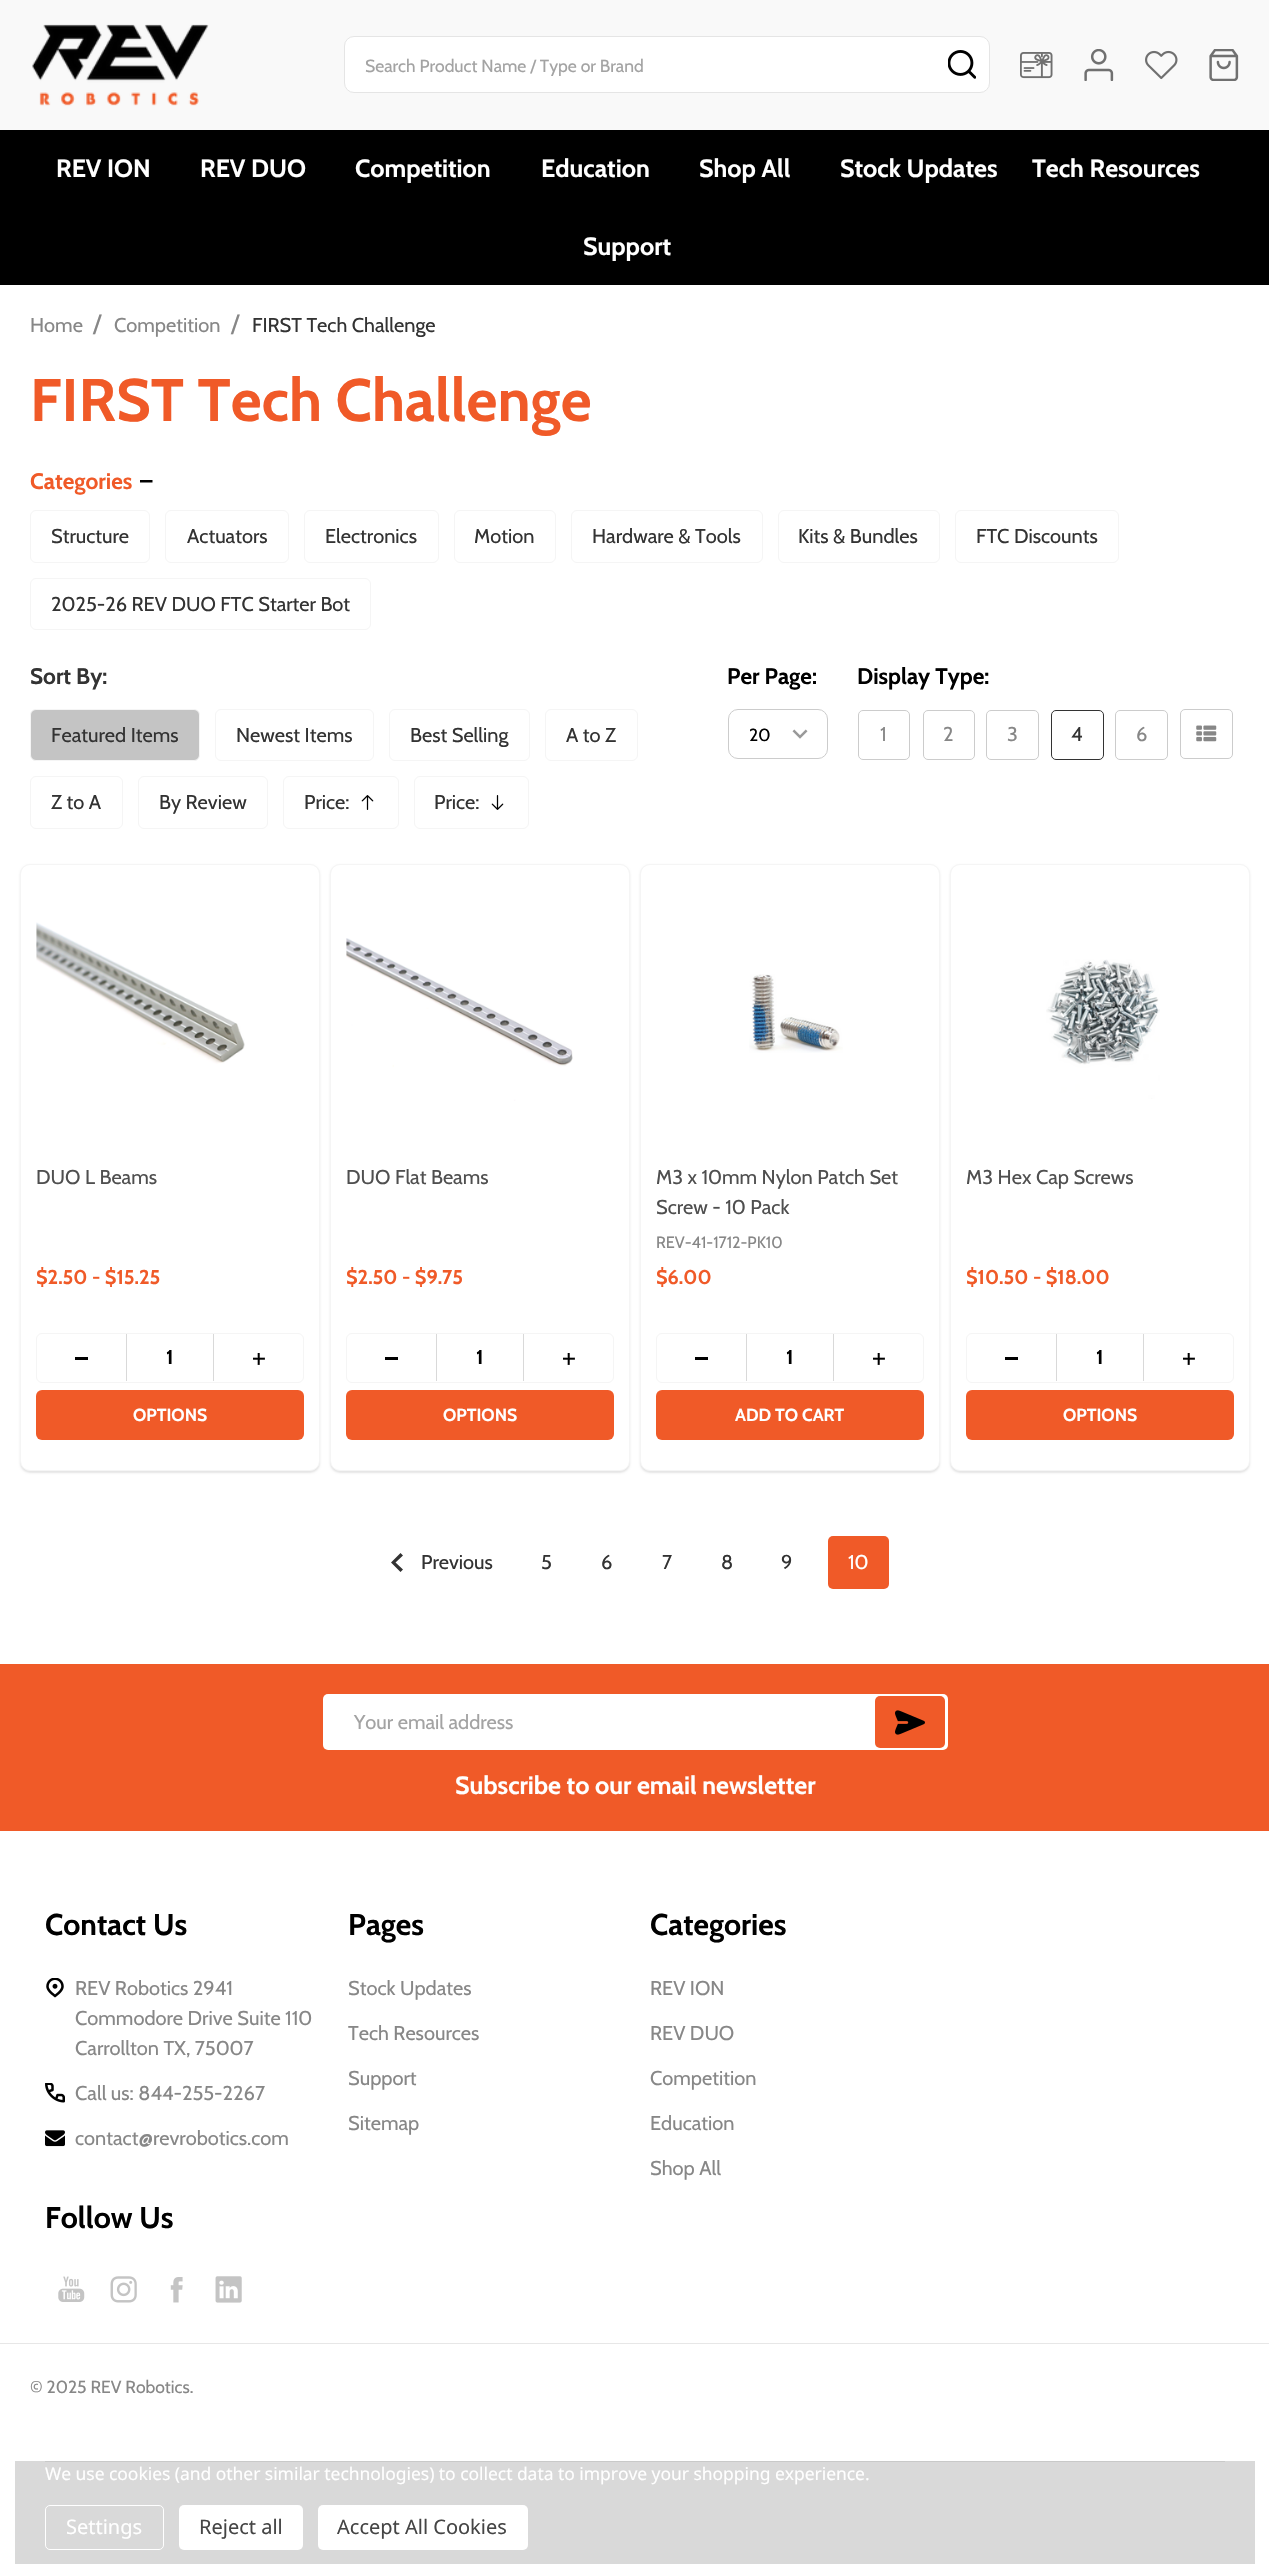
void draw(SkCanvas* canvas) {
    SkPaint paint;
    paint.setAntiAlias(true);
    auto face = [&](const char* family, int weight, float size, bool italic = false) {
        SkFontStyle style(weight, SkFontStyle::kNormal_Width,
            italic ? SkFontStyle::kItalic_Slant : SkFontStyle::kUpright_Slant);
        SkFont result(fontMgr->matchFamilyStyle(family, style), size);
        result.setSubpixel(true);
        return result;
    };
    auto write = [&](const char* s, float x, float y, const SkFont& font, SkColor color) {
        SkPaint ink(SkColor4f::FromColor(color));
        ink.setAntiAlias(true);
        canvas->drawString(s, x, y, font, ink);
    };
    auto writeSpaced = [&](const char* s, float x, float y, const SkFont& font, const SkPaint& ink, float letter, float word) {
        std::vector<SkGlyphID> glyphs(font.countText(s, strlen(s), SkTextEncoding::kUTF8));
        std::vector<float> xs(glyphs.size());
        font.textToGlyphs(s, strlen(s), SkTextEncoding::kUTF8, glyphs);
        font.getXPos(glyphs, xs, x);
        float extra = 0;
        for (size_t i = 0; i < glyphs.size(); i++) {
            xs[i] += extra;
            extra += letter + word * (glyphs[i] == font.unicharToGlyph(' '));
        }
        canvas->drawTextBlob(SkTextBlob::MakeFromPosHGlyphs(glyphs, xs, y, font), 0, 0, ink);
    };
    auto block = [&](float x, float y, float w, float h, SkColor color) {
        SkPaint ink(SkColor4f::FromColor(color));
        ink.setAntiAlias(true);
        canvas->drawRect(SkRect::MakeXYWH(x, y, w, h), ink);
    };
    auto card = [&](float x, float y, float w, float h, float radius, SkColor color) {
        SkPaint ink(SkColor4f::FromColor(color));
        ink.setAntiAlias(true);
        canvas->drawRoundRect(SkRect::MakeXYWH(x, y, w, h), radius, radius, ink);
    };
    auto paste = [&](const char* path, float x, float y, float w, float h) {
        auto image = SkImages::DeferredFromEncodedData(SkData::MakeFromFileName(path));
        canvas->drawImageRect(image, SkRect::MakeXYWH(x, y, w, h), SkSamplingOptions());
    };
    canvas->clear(SK_ColorWHITE);
    block(0, 0, 1269, 130, SkColorSetRGB(249, 249, 249));
    paste("pic1.png", 32, 24, 177, 82);
    paint.setColor(SK_ColorWHITE);
    canvas->drawRoundRect(SkRect::MakeXYWH(344.5f, 36.5f, 645, 56), 9.5f, 9.5f, paint);
    paint.setStyle(SkPaint::kStroke_Style);
    paint.setStrokeWidth(1);
    paint.setColor(SkColorSetRGB(229, 229, 229));
    canvas->drawRoundRect(SkRect::MakeXYWH(344.5f, 36.5f, 645, 56), 9.5f, 9.5f, paint);
    canvas->save();
    canvas->clipRect(SkRect::MakeXYWH(365, 54, 604, 22));
    auto kFont1 = face("Cabin", 400, 17.5f);
    write("Search Product Name / Type or Brand", 365, 72, kFont1, SkColorSetRGB(163, 163, 163));
    canvas->restore();
    paste("pic2.png", 948, 50, 28, 29);
    paste("pic3.png", 1020, 52, 33, 27);
    paste("pic4.png", 1084, 49, 30, 32);
    paste("pic5.png", 1145, 50, 33, 30);
    paste("pic6.png", 1209, 49, 30, 32);
    block(0, 130, 1269, 155, SK_ColorBLACK);
    auto kFont2 = face("Cabin", 700, 25);
    write("REV ION", 56, 177, kFont2, SK_ColorWHITE);
    write("REV DUO", 200, 177, kFont2, SK_ColorWHITE);
    write("Competition", 355, 177, kFont2, SK_ColorWHITE);
    write("Education", 541, 177, kFont2, SK_ColorWHITE);
    write("Shop All", 699, 177, kFont2, SK_ColorWHITE);
    write("Stock Updates", 840, 177, kFont2, SK_ColorWHITE);
    write("Tech Resources", 1032, 177, kFont2, SK_ColorWHITE);
    write("Support", 583, 255, kFont2, SK_ColorWHITE);
    auto kFont3 = face("Cabin", 400, 20);
    write("Home", 30, 332, kFont3, SkColorSetRGB(135, 135, 135));
    auto kFont4 = face("Cabin", 400, 25);
    write("/", 93, 332, kFont4, SkColorSetRGB(135, 135, 135));
    write("Competition", 114, 332, kFont3, SkColorSetRGB(135, 135, 135));
    write("/", 231, 332, kFont4, SkColorSetRGB(135, 135, 135));
    write("FIRST Tech Challenge", 252, 332, kFont3, SkColorSetRGB(51, 51, 51));
    auto kFont5 = face("Cabin", 700, 60);
    write("FIRST Tech Challenge", 30, 421, kFont5, SkColorSetRGB(240, 90, 40));
    auto kFont6 = face("Cabin", 700, 22.5f);
    write("Categories", 30, 489, kFont6, SkColorSetRGB(240, 90, 40));
    paint.setStyle(SkPaint::kFill_Style);
    paint.setColor(SK_ColorBLACK);
    canvas->drawPath(SkPathBuilder().moveTo(140, 482.5f).lineTo(140, 480).lineTo(152.5f, 480).lineTo(152.5f, 482.5f).detach(), paint);
    paint.setStyle(SkPaint::kStroke_Style);
    paint.setColor(SkColorSetRGB(245, 245, 245));
    canvas->drawRoundRect(SkRect::MakeXYWH(30.5f, 510.5f, 119, 52), 5.5f, 5.5f, paint);
    write("Structure", 51, 543, kFont3, SkColorSetRGB(51, 51, 51));
    canvas->drawRoundRect(SkRect::MakeXYWH(165.5f, 510.5f, 123, 52), 5.5f, 5.5f, paint);
    write("Actuators", 187, 543, kFont3, SkColorSetRGB(51, 51, 51));
    canvas->drawRoundRect(SkRect::MakeXYWH(304.5f, 510.5f, 134, 52), 5.5f, 5.5f, paint);
    write("Electronics", 325, 543, kFont3, SkColorSetRGB(51, 51, 51));
    canvas->drawRoundRect(SkRect::MakeXYWH(454.5f, 510.5f, 101, 52), 5.5f, 5.5f, paint);
    write("Motion", 474, 543, kFont3, SkColorSetRGB(51, 51, 51));
    canvas->drawRoundRect(SkRect::MakeXYWH(571.5f, 510.5f, 191, 52), 5.5f, 5.5f, paint);
    write("Hardware & Tools", 592, 543, kFont3, SkColorSetRGB(51, 51, 51));
    canvas->drawRoundRect(SkRect::MakeXYWH(778.5f, 510.5f, 161, 52), 5.5f, 5.5f, paint);
    write("Kits & Bundles", 798, 543, kFont3, SkColorSetRGB(51, 51, 51));
    canvas->drawRoundRect(SkRect::MakeXYWH(955.5f, 510.5f, 163, 52), 5.5f, 5.5f, paint);
    write("FTC Discounts", 976, 543, kFont3, SkColorSetRGB(51, 51, 51));
    canvas->drawRoundRect(SkRect::MakeXYWH(30.5f, 578.5f, 340, 51), 5.5f, 5.5f, paint);
    write("2025-26 REV DUO FTC Starter Bot", 51, 611, kFont3, SkColorSetRGB(51, 51, 51));
    write("Sort By:", 30, 684, kFont6, SkColorSetRGB(51, 51, 51));
    paint.setStyle(SkPaint::kFill_Style);
    paint.setColor(SkColorSetRGB(196, 196, 196));
    canvas->drawRoundRect(SkRect::MakeXYWH(30.5f, 709.5f, 169, 51), 5.5f, 5.5f, paint);
    paint.setStyle(SkPaint::kStroke_Style);
    paint.setColor(SkColorSetRGB(245, 245, 245));
    canvas->drawRoundRect(SkRect::MakeXYWH(30.5f, 709.5f, 169, 51), 5.5f, 5.5f, paint);
    write("Featured Items", 51, 742, kFont3, SkColorSetRGB(51, 51, 51));
    canvas->drawRoundRect(SkRect::MakeXYWH(215.5f, 709.5f, 158, 51), 5.5f, 5.5f, paint);
    write("Newest Items", 236, 742, kFont3, SkColorSetRGB(51, 51, 51));
    canvas->drawRoundRect(SkRect::MakeXYWH(389.5f, 709.5f, 140, 51), 5.5f, 5.5f, paint);
    write("Best Selling", 410, 742, kFont3, SkColorSetRGB(51, 51, 51));
    canvas->drawRoundRect(SkRect::MakeXYWH(545.5f, 709.5f, 92, 51), 5.5f, 5.5f, paint);
    write("A to Z", 566, 742, kFont3, SkColorSetRGB(51, 51, 51));
    canvas->drawRoundRect(SkRect::MakeXYWH(30.5f, 776.5f, 92, 52), 5.5f, 5.5f, paint);
    write("Z to A", 51, 809, kFont3, SkColorSetRGB(51, 51, 51));
    canvas->drawRoundRect(SkRect::MakeXYWH(138.5f, 776.5f, 129, 52), 5.5f, 5.5f, paint);
    write("By Review", 159, 809, kFont3, SkColorSetRGB(51, 51, 51));
    canvas->drawRoundRect(SkRect::MakeXYWH(283.5f, 776.5f, 115, 52), 5.5f, 5.5f, paint);
    write("Price:", 304, 809, kFont3, SkColorSetRGB(51, 51, 51));
    paste("pic7.png", 361, 795, 13, 15);
    canvas->drawRoundRect(SkRect::MakeXYWH(414.5f, 776.5f, 114, 52), 5.5f, 5.5f, paint);
    write("Price:", 434, 809, kFont3, SkColorSetRGB(51, 51, 51));
    paste("pic8.png", 491, 795, 13, 15);
    write("Per Page:", 727, 684, kFont6, SK_ColorBLACK);
    paste("pic9.png", 792, 729, 16, 10);
    paint.setColor(SkColorSetRGB(204, 204, 204));
    canvas->drawRoundRect(SkRect::MakeXYWH(728.5f, 709.5f, 99, 49), 9.5f, 9.5f, paint);
    write("20", 749, 741, kFont1, SK_ColorBLACK);
    write("Display Type:", 857, 684, kFont6, SK_ColorBLACK);
    canvas->drawRoundRect(SkRect::MakeXYWH(858.5f, 710.5f, 51, 49), 4.5f, 4.5f, paint);
    write("1", 880, 741, kFont3, SkColorSetRGB(135, 135, 135));
    canvas->drawRoundRect(SkRect::MakeXYWH(923.5f, 710.5f, 51, 49), 4.5f, 4.5f, paint);
    write("2", 943, 741, kFont3, SkColorSetRGB(135, 135, 135));
    canvas->drawRoundRect(SkRect::MakeXYWH(986.5f, 710.5f, 52, 49), 4.5f, 4.5f, paint);
    write("3", 1007, 741, kFont3, SkColorSetRGB(135, 135, 135));
    paint.setColor(SkColorSetRGB(51, 51, 51));
    canvas->drawRoundRect(SkRect::MakeXYWH(1051.5f, 710.5f, 52, 49), 4.5f, 4.5f, paint);
    write("4", 1071, 741, kFont3, SkColorSetRGB(51, 51, 51));
    paint.setColor(SkColorSetRGB(204, 204, 204));
    canvas->drawRoundRect(SkRect::MakeXYWH(1115.5f, 710.5f, 52, 49), 4.5f, 4.5f, paint);
    write("6", 1136, 741, kFont3, SkColorSetRGB(135, 135, 135));
    canvas->drawRoundRect(SkRect::MakeXYWH(1180.5f, 709.5f, 52, 49), 4.5f, 4.5f, paint);
    paste("pic10.png", 1196, 725, 21, 17);
    paint.setStyle(SkPaint::kFill_Style);
    paint.setColor(SkColorSetARGB(26, 0, 0, 0));
    paint.setMaskFilter(SkMaskFilter::MakeBlur(kNormal_SkBlurStyle, 1));
    canvas->drawRoundRect(SkRect::MakeXYWH(20, 865, 300, 608), 10, 10, paint);
    paint.setMaskFilter(nullptr);
    paint.setColor(SK_ColorWHITE);
    canvas->drawRoundRect(SkRect::MakeXYWH(20.5f, 864.5f, 299, 606), 9.5f, 9.5f, paint);
    paint.setStyle(SkPaint::kStroke_Style);
    paint.setColor(SkColorSetRGB(245, 245, 245));
    canvas->drawRoundRect(SkRect::MakeXYWH(20.5f, 864.5f, 299, 606), 9.5f, 9.5f, paint);
    paste("pic11.png", 36, 922, 209, 142);
    write("DUO L Beams", 36, 1184, kFont3, SkColorSetRGB(79, 79, 79));
    auto kFont7 = face("Cabin", 700, 20);
    write("$2.50 - $15.25", 36, 1284, kFont7, SkColorSetRGB(240, 90, 40));
    canvas->drawRoundRect(SkRect::MakeXYWH(36.5f, 1333.5f, 267, 49), 5.5f, 5.5f, paint);
    block(75, 1357, 13, 3, SK_ColorBLACK);
    block(213, 1334, 1, 47, SkColorSetRGB(217, 217, 217));
    block(126, 1334, 1, 47, SkColorSetRGB(217, 217, 217));
    write("1", 166, 1364, kFont7, SK_ColorBLACK);
    paste("pic12.png", 253, 1353, 12, 12);
    card(36, 1390, 268, 50, 6, SkColorSetRGB(240, 90, 40));
    auto kFont8 = face("Cabin", 700, 17.5f);
    write("OPTIONS", 133, 1421, kFont8, SK_ColorWHITE);
    paint.setStyle(SkPaint::kFill_Style);
    paint.setColor(SkColorSetARGB(26, 0, 0, 0));
    paint.setMaskFilter(SkMaskFilter::MakeBlur(kNormal_SkBlurStyle, 1));
    canvas->drawRoundRect(SkRect::MakeXYWH(330, 865, 300, 608), 10, 10, paint);
    paint.setMaskFilter(nullptr);
    paint.setColor(SK_ColorWHITE);
    canvas->drawRoundRect(SkRect::MakeXYWH(330.5f, 864.5f, 299, 606), 9.5f, 9.5f, paint);
    paint.setStyle(SkPaint::kStroke_Style);
    paint.setColor(SkColorSetRGB(245, 245, 245));
    canvas->drawRoundRect(SkRect::MakeXYWH(330.5f, 864.5f, 299, 606), 9.5f, 9.5f, paint);
    paste("pic13.png", 346, 938, 227, 163);
    write("DUO Flat Beams", 346, 1184, kFont3, SkColorSetRGB(79, 79, 79));
    write("$2.50 - $9.75", 346, 1284, kFont7, SkColorSetRGB(240, 90, 40));
    canvas->drawRoundRect(SkRect::MakeXYWH(346.5f, 1333.5f, 267, 49), 5.5f, 5.5f, paint);
    block(385, 1357, 13, 3, SK_ColorBLACK);
    block(523, 1334, 1, 47, SkColorSetRGB(217, 217, 217));
    block(436, 1334, 1, 47, SkColorSetRGB(217, 217, 217));
    write("1", 476, 1364, kFont7, SK_ColorBLACK);
    paste("pic12.png", 563, 1353, 12, 12);
    card(346, 1390, 268, 50, 6, SkColorSetRGB(240, 90, 40));
    write("OPTIONS", 443, 1421, kFont8, SK_ColorWHITE);
    paint.setStyle(SkPaint::kFill_Style);
    paint.setColor(SkColorSetARGB(26, 0, 0, 0));
    paint.setMaskFilter(SkMaskFilter::MakeBlur(kNormal_SkBlurStyle, 1));
    canvas->drawRoundRect(SkRect::MakeXYWH(640, 865, 300, 608), 10, 10, paint);
    paint.setMaskFilter(nullptr);
    paint.setColor(SK_ColorWHITE);
    canvas->drawRoundRect(SkRect::MakeXYWH(640.5f, 864.5f, 299, 606), 9.5f, 9.5f, paint);
    paint.setStyle(SkPaint::kStroke_Style);
    paint.setColor(SkColorSetRGB(245, 245, 245));
    canvas->drawRoundRect(SkRect::MakeXYWH(640.5f, 864.5f, 299, 606), 9.5f, 9.5f, paint);
    paste("pic14.png", 749, 974, 94, 79);
    write("M3 x 10mm Nylon Patch Set", 656, 1184, kFont3, SkColorSetRGB(79, 79, 79));
    write("Screw - 10 Pack", 656, 1214, kFont3, SkColorSetRGB(79, 79, 79));
    auto kFont9 = face("Cabin", 400, 16.25f);
    write("REV-41-1712-PK10", 656, 1248, kFont9, SkColorSetRGB(135, 135, 135));
    write("$6.00", 656, 1284, kFont7, SkColorSetRGB(240, 90, 40));
    canvas->drawRoundRect(SkRect::MakeXYWH(656.5f, 1333.5f, 267, 49), 5.5f, 5.5f, paint);
    block(695, 1357, 13, 3, SK_ColorBLACK);
    block(833, 1334, 1, 47, SkColorSetRGB(217, 217, 217));
    block(746, 1334, 1, 47, SkColorSetRGB(217, 217, 217));
    write("1", 786, 1364, kFont7, SK_ColorBLACK);
    paste("pic12.png", 873, 1353, 12, 12);
    card(656, 1390, 268, 50, 6, SkColorSetRGB(240, 90, 40));
    write("ADD TO CART", 735, 1421, kFont8, SK_ColorWHITE);
    paint.setStyle(SkPaint::kFill_Style);
    paint.setColor(SkColorSetARGB(26, 0, 0, 0));
    paint.setMaskFilter(SkMaskFilter::MakeBlur(kNormal_SkBlurStyle, 1));
    canvas->drawRoundRect(SkRect::MakeXYWH(950, 865, 300, 608), 10, 10, paint);
    paint.setMaskFilter(nullptr);
    paint.setColor(SK_ColorWHITE);
    canvas->drawRoundRect(SkRect::MakeXYWH(950.5f, 864.5f, 299, 606), 9.5f, 9.5f, paint);
    paint.setStyle(SkPaint::kStroke_Style);
    paint.setColor(SkColorSetRGB(245, 245, 245));
    canvas->drawRoundRect(SkRect::MakeXYWH(950.5f, 864.5f, 299, 606), 9.5f, 9.5f, paint);
    paste("pic15.png", 1046, 959, 114, 140);
    write("M3 Hex Cap Screws", 966, 1184, kFont3, SkColorSetRGB(79, 79, 79));
    write("$10.50 - $18.00", 966, 1284, kFont7, SkColorSetRGB(240, 90, 40));
    canvas->drawRoundRect(SkRect::MakeXYWH(966.5f, 1333.5f, 267, 49), 5.5f, 5.5f, paint);
    block(1005, 1357, 13, 3, SK_ColorBLACK);
    block(1143, 1334, 1, 47, SkColorSetRGB(217, 217, 217));
    block(1056, 1334, 1, 47, SkColorSetRGB(217, 217, 217));
    write("1", 1096, 1364, kFont7, SK_ColorBLACK);
    paste("pic12.png", 1183, 1353, 12, 12);
    card(966, 1390, 268, 50, 6, SkColorSetRGB(240, 90, 40));
    write("OPTIONS", 1063, 1421, kFont8, SK_ColorWHITE);
    paint.setStyle(SkPaint::kFill_Style);
    paint.setColor(SkColorSetRGB(51, 51, 51));
    canvas->drawPath(SkPathBuilder().moveTo(403, 1555.5f).lineTo(400.5f, 1553).lineTo(391, 1562.5f).lineTo(400.5f, 1572).lineTo(403, 1569.5f).lineTo(395.5f, 1562.5f).close().detach(), paint);
    write("Previous", 421, 1569, kFont3, SkColorSetRGB(51, 51, 51));
    write("5", 541, 1569, kFont3, SkColorSetRGB(51, 51, 51));
    write("6", 601, 1569, kFont3, SkColorSetRGB(51, 51, 51));
    write("7", 662, 1569, kFont3, SkColorSetRGB(51, 51, 51));
    write("8", 721, 1569, kFont3, SkColorSetRGB(51, 51, 51));
    write("9", 781, 1569, kFont3, SkColorSetRGB(51, 51, 51));
    card(828, 1536, 61, 53, 5, SkColorSetRGB(240, 90, 40));
    write("10", 848, 1569, kFont3, SK_ColorWHITE);
    block(0, 1664, 1269, 167, SkColorSetRGB(240, 90, 40));
    card(323, 1694, 625, 56, 5, SK_ColorWHITE);
    write("Your email address", 354, 1729, kFont3, SkColorSetRGB(163, 163, 163));
    card(875, 1696, 70, 52, 5, SkColorSetRGB(240, 90, 40));
    paste("pic16.png", 895, 1710, 30, 25);
    write("Subscribe to our email newsletter", 455, 1794, kFont2, SK_ColorWHITE);
    auto kFont10 = face("Cabin", 700, 30);
    write("Contact Us", 45, 1935, kFont10, SK_ColorBLACK);
    paste("pic17.png", 46, 1978, 18, 20);
    write("REV Robotics 2941", 75, 1995, kFont3, SkColorSetRGB(135, 135, 135));
    write("Commodore Drive Suite 110", 75, 2025, kFont3, SkColorSetRGB(135, 135, 135));
    write("Carrollton TX, 75007", 75, 2055, kFont3, SkColorSetRGB(135, 135, 135));
    paste("pic18.png", 45, 2083, 20, 20);
    write("Call us: 844-255-2267", 75, 2100, kFont3, SkColorSetRGB(135, 135, 135));
    paste("pic19.png", 45, 2130, 20, 17);
    write("contact@revrobotics.com", 75, 2145, kFont3, SkColorSetRGB(135, 135, 135));
    write("Follow Us", 45, 2228, kFont10, SK_ColorBLACK);
    paste("pic20.png", 58, 2276, 27, 26);
    paste("pic21.png", 110, 2276, 27, 27);
    paste("pic22.png", 170, 2277, 13, 26);
    paste("pic23.png", 215, 2276, 27, 27);
    write("Pages", 348, 1935, kFont10, SK_ColorBLACK);
    write("Stock Updates", 348, 1995, kFont3, SkColorSetRGB(135, 135, 135));
    write("Tech Resources", 348, 2040, kFont3, SkColorSetRGB(135, 135, 135));
    write("Support", 348, 2085, kFont3, SkColorSetRGB(135, 135, 135));
    write("Sitemap", 348, 2130, kFont3, SkColorSetRGB(135, 135, 135));
    write("Categories", 650, 1935, kFont10, SK_ColorBLACK);
    write("REV ION", 650, 1995, kFont3, SkColorSetRGB(135, 135, 135));
    write("REV DUO", 650, 2040, kFont3, SkColorSetRGB(135, 135, 135));
    write("Competition", 650, 2085, kFont3, SkColorSetRGB(135, 135, 135));
    write("Education", 650, 2130, kFont3, SkColorSetRGB(135, 135, 135));
    write("Shop All", 650, 2175, kFont3, SkColorSetRGB(135, 135, 135));
    block(0, 2343, 1269, 1, SkColorSetRGB(231, 231, 231));
    write("© 2025 REV Robotics.", 30, 2393, kFont1, SkColorSetRGB(135, 135, 135));
    block(15, 2461, 1240, 103, SkColorSetRGB(217, 217, 217));
    block(45, 2461, 1180, 1, SkColorSetRGB(201, 201, 201));
    auto kFont11 = face("Noto Sans", 400, 17.5f);
    paint.setColor(SK_ColorWHITE);
    writeSpaced("We use cookies (and other similar technologies) to collect data to improve your shopping experience.", 45, 2480, kFont11, paint, -0.05f, 0);
    paint.setStyle(SkPaint::kStroke_Style);
    canvas->drawRoundRect(SkRect::MakeXYWH(45.5f, 2505.5f, 118, 44), 4.5f, 4.5f, paint);
    auto kFont12 = face("Noto Sans", 400, 20);
    write("Settings", 66, 2534, kFont12, SK_ColorWHITE);
    card(179, 2505, 124, 45, 5, SK_ColorWHITE);
    write("Reject all", 199, 2534, kFont12, SkColorSetRGB(69, 69, 69));
    card(318, 2505, 210, 45, 5, SK_ColorWHITE);
    write("Accept All Cookies", 337, 2534, kFont12, SkColorSetRGB(69, 69, 69));
}
